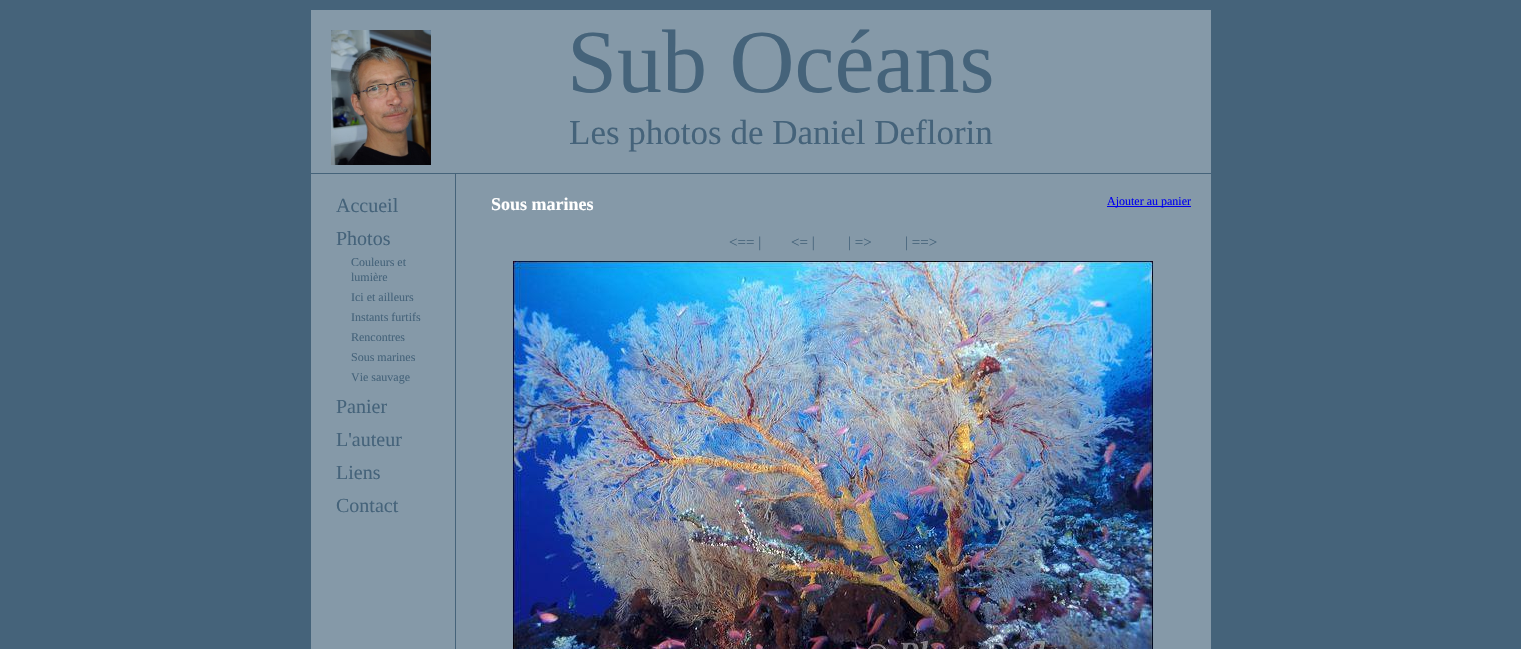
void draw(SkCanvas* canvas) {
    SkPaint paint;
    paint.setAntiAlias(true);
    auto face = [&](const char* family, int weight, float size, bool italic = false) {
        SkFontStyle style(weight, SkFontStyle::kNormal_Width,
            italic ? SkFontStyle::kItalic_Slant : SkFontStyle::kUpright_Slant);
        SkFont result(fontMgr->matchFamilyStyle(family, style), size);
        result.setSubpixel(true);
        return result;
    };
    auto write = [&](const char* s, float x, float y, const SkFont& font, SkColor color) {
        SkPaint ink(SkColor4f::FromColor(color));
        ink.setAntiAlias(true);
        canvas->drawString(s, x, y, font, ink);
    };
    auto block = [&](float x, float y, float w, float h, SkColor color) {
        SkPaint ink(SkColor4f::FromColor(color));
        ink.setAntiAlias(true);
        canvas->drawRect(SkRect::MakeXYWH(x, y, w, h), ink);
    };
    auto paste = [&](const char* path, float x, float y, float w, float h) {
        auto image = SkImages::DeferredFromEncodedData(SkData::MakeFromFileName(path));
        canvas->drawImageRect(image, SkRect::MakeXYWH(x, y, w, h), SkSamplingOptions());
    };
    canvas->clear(SkColorSetRGB(69, 99, 122));
    block(311, 10, 900, 639, SkColorSetRGB(133, 153, 168));
    auto kFont1 = face("Liberation Serif", 400, 90);
    write("Sub Océans", 567, 92, kFont1, SkColorSetRGB(69, 99, 122));
    auto kFont2 = face("Liberation Serif", 400, 35);
    write("Les photos de Daniel Deflorin", 569, 144, kFont2, SkColorSetRGB(69, 99, 122));
    block(311, 173, 900, 1, SkColorSetRGB(69, 99, 122));
    auto kFont3 = face("Liberation Serif", 400, 20);
    write("Accueil", 336, 212, kFont3, SkColorSetRGB(69, 99, 122));
    write("Photos", 336, 245, kFont3, SkColorSetRGB(69, 99, 122));
    auto kFont4 = face("Liberation Serif", 400, 12);
    write("Couleurs et", 351, 266, kFont4, SkColorSetRGB(69, 99, 122));
    write("lumière", 351, 281, kFont4, SkColorSetRGB(69, 99, 122));
    write("Ici et ailleurs", 351, 301, kFont4, SkColorSetRGB(69, 99, 122));
    write("Instants furtifs", 351, 321, kFont4, SkColorSetRGB(69, 99, 122));
    write("Rencontres", 351, 341, kFont4, SkColorSetRGB(69, 99, 122));
    write("Sous marines", 351, 361, kFont4, SkColorSetRGB(69, 99, 122));
    write("Vie sauvage", 351, 381, kFont4, SkColorSetRGB(69, 99, 122));
    write("Panier", 336, 413, kFont3, SkColorSetRGB(69, 99, 122));
    write("L'auteur", 336, 446, kFont3, SkColorSetRGB(69, 99, 122));
    write("Liens", 336, 479, kFont3, SkColorSetRGB(69, 99, 122));
    write("Contact", 336, 512, kFont3, SkColorSetRGB(69, 99, 122));
    block(455, 173, 1, 476, SkColorSetRGB(69, 99, 122));
    auto kFont5 = face("Liberation Serif", 700, 18);
    write("Sous marines", 491, 210, kFont5, SK_ColorWHITE);
    block(1107, 206, 84, 1, SkColorSetRGB(0, 0, 238));
    write("Ajouter au panier", 1107, 205, kFont4, SkColorSetRGB(0, 0, 238));
    auto kFont6 = face("Liberation Serif", 400, 15);
    write("<== |", 729, 247, kFont6, SkColorSetRGB(69, 99, 122));
    write("<= |", 791, 247, kFont6, SkColorSetRGB(69, 99, 122));
    write("| =>", 848, 247, kFont6, SkColorSetRGB(69, 99, 122));
    write("| ==>", 905, 247, kFont6, SkColorSetRGB(69, 99, 122));
    paste("pic1.png", 513, 261, 640, 388);
    paste("pic2.png", 331, 30, 100, 135);
}
